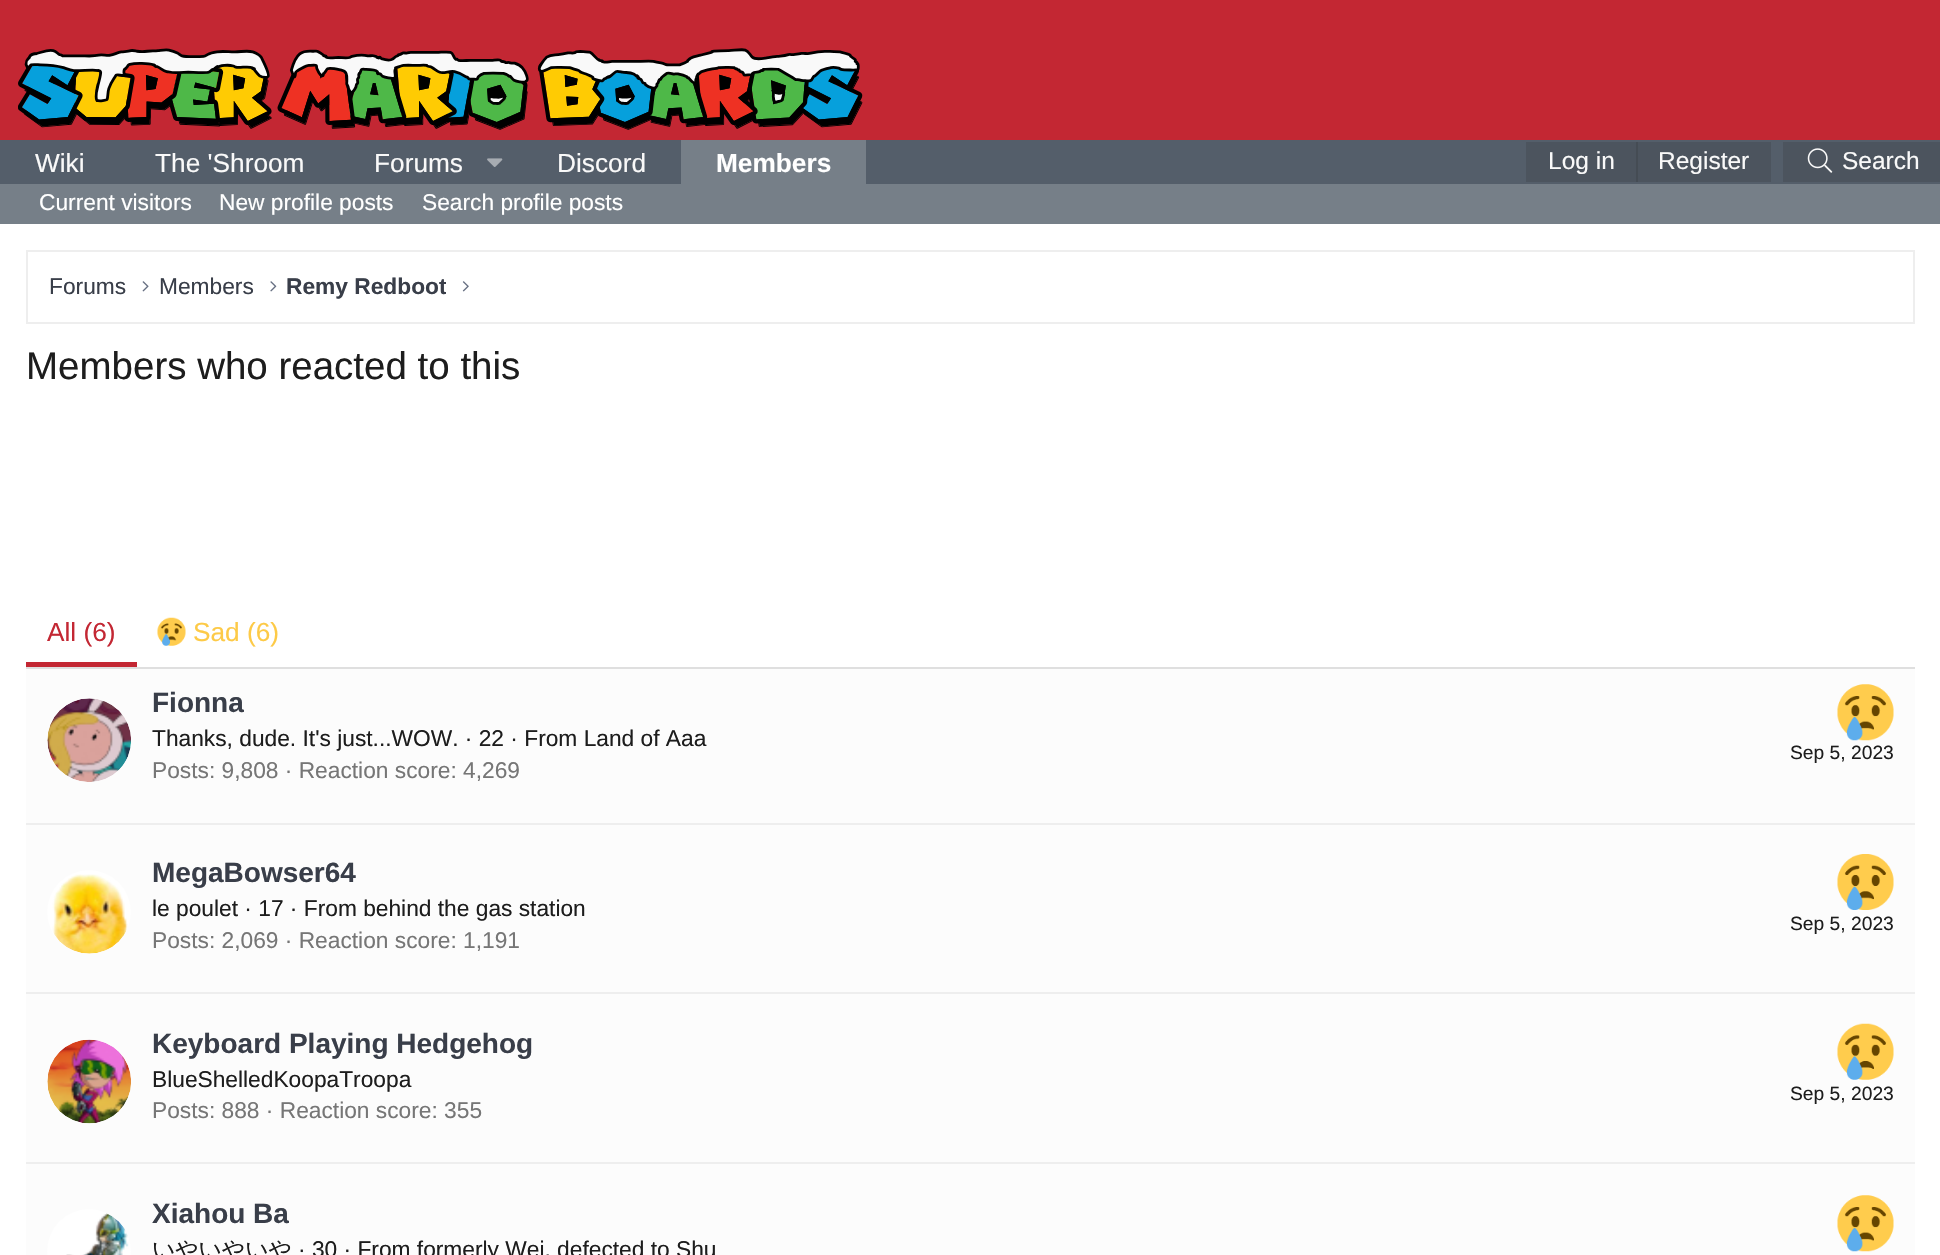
void draw(SkCanvas* canvas) {
    SkPaint paint;
    paint.setAntiAlias(true);
    auto face = [&](const char* family, int weight, float size, bool italic = false) {
        SkFontStyle style(weight, SkFontStyle::kNormal_Width,
            italic ? SkFontStyle::kItalic_Slant : SkFontStyle::kUpright_Slant);
        SkFont result(fontMgr->matchFamilyStyle(family, style), size);
        result.setSubpixel(true);
        return result;
    };
    auto write = [&](const char* s, float x, float y, const SkFont& font, SkColor color) {
        SkPaint ink(SkColor4f::FromColor(color));
        ink.setAntiAlias(true);
        canvas->drawString(s, x, y, font, ink);
    };
    auto block = [&](float x, float y, float w, float h, SkColor color) {
        SkPaint ink(SkColor4f::FromColor(color));
        ink.setAntiAlias(true);
        canvas->drawRect(SkRect::MakeXYWH(x, y, w, h), ink);
    };
    auto paste = [&](const char* path, float x, float y, float w, float h) {
        auto image = SkImages::DeferredFromEncodedData(SkData::MakeFromFileName(path));
        canvas->drawImageRect(image, SkRect::MakeXYWH(x, y, w, h), SkSamplingOptions());
    };
    canvas->clear(SkColorSetRGB(195, 39, 51));
    paste("pic1.png", 18, 48, 845, 82);
    block(0, 140, 1940, 44, SkColorSetRGB(84, 94, 106));
    auto kFont1 = face("Liberation Sans", 400, 26.25f);
    write("Wiki", 35, 172, kFont1, SkColorSetRGB(249, 249, 249));
    write("The 'Shroom", 155, 172, kFont1, SkColorSetRGB(249, 249, 249));
    write("Forums", 374, 172, kFont1, SkColorSetRGB(249, 249, 249));
    paste("pic2.png", 487, 158, 16, 9);
    write("Discord", 557, 172, kFont1, SkColorSetRGB(249, 249, 249));
    block(681, 140, 185, 44, SkColorSetRGB(118, 127, 136));
    auto kFont2 = face("Liberation Sans", 700, 26.25f);
    write("Members", 716, 172, kFont2, SK_ColorWHITE);
    block(1526, 142, 245, 40, SkColorSetRGB(76, 84, 94));
    auto kFont3 = face("Liberation Sans", 400, 24.5f);
    write("Log in", 1548, 169, kFont3, SkColorSetRGB(249, 249, 249));
    block(1636, 142, 2, 40, SkColorSetRGB(69, 76, 84));
    write("Register", 1658, 169, kFont3, SkColorSetRGB(249, 249, 249));
    block(1783, 142, 157, 40, SkColorSetRGB(76, 84, 94));
    paste("pic3.png", 1807, 148, 26, 25);
    write("Search", 1842, 169, kFont3, SkColorSetRGB(249, 249, 249));
    block(0, 184, 1940, 40, SkColorSetRGB(118, 127, 136));
    auto kFont4 = face("Liberation Sans", 400, 22.75f);
    write("Current visitors", 39, 210, kFont4, SK_ColorWHITE);
    write("New profile posts", 219, 210, kFont4, SK_ColorWHITE);
    write("Search profile posts", 422, 210, kFont4, SK_ColorWHITE);
    block(0, 224, 1940, 1031, SK_ColorWHITE);
    paint.setStyle(SkPaint::kStroke_Style);
    paint.setStrokeWidth(2);
    paint.setColor(SkColorSetRGB(238, 238, 238));
    canvas->drawRect(SkRect::MakeXYWH(27, 251, 1887, 72), paint);
    write("Forums", 49, 294, kFont4, SkColorSetRGB(57, 62, 73));
    paste("pic4.png", 142, 281, 7, 11);
    write("Members", 159, 294, kFont4, SkColorSetRGB(57, 62, 73));
    paste("pic5.png", 270, 281, 7, 11);
    canvas->save();
    canvas->clipRect(SkRect::MakeXYWH(287, 270, 159, 35));
    auto kFont5 = face("Liberation Sans", 700, 22.75f);
    write("Remy Redboot", 286, 294, kFont5, SkColorSetRGB(57, 62, 73));
    canvas->restore();
    paste("pic6.png", 462, 281, 7, 11);
    auto kFont6 = face("Liberation Sans", 400, 38.5f);
    write("Members who reacted to this", 26, 379, kFont6, SkColorSetRGB(29, 29, 29));
    block(26, 669, 1889, 586, SkColorSetRGB(252, 252, 252));
    block(26, 667, 1889, 2, SkColorSetRGB(223, 223, 223));
    block(26, 662, 111, 5, SkColorSetRGB(195, 39, 51));
    write("All (6)", 47, 641, kFont1, SkColorSetRGB(195, 39, 51));
    paste("pic7.png", 157, 617, 29, 29);
    write("Sad (6)", 193, 641, kFont1, SkColorSetRGB(253, 202, 71));
    paint.setStyle(SkPaint::kFill_Style);
    paint.setColor(SK_ColorWHITE);
    canvas->drawCircle(89, 740, 42, paint);
    paste("pic8.png", 47, 698, 84, 84);
    auto kFont7 = face("Liberation Sans", 700, 28);
    write("Fionna", 152, 712, kFont7, SkColorSetRGB(57, 62, 73));
    write("Thanks, dude. It's just...WOW. · 22 · From Land of Aaa", 152, 746, kFont4, SkColorSetRGB(29, 29, 29));
    paste("pic9.png", 1837, 684, 57, 57);
    auto kFont8 = face("Liberation Sans", 400, 19.25f);
    write("Sep 5, 2023", 1790, 759, kFont8, SkColorSetRGB(29, 29, 29));
    write("Posts: 9,808 · Reaction score: 4,269", 152, 778, kFont4, SkColorSetRGB(118, 118, 118));
    block(26, 823, 1889, 2, SkColorSetRGB(238, 238, 238));
    canvas->drawCircle(89, 912, 42, paint);
    paste("pic10.png", 52, 874, 76, 80);
    write("MegaBowser64", 152, 882, kFont7, SkColorSetRGB(57, 62, 73));
    write("le poulet · 17 · From behind the gas station", 152, 916, kFont4, SkColorSetRGB(29, 29, 29));
    paste("pic11.png", 1837, 854, 57, 56);
    write("Sep 5, 2023", 1790, 930, kFont8, SkColorSetRGB(29, 29, 29));
    write("Posts: 2,069 · Reaction score: 1,191", 152, 948, kFont4, SkColorSetRGB(118, 118, 118));
    block(26, 992, 1889, 2, SkColorSetRGB(238, 238, 238));
    canvas->drawCircle(89, 1082, 42, paint);
    paste("pic12.png", 47, 1039, 84, 85);
    write("Keyboard Playing Hedgehog", 152, 1053, kFont7, SkColorSetRGB(57, 62, 73));
    write("BlueShelledKoopaTroopa", 152, 1087, kFont4, SkColorSetRGB(29, 29, 29));
    paste("pic13.png", 1837, 1023, 57, 57);
    write("Sep 5, 2023", 1790, 1100, kFont8, SkColorSetRGB(29, 29, 29));
    write("Posts: 888 · Reaction score: 355", 152, 1118, kFont4, SkColorSetRGB(118, 118, 118));
    block(26, 1162, 1889, 2, SkColorSetRGB(238, 238, 238));
    canvas->drawCircle(89, 1251, 42, paint);
    paste("pic14.png", 66, 1213, 63, 42);
    write("Xiahou Ba", 152, 1223, kFont7, SkColorSetRGB(57, 62, 73));
    paste("pic15.png", 1837, 1195, 57, 57);
    auto kFont9 = face("WenQuanYi Zen Hei", 500, 22.75f);
    write("いやいやいや", 152, 1257, kFont9, SkColorSetRGB(29, 29, 29));
    write("· 30 · From formerly Wei, defected to Shu", 298, 1257, kFont4, SkColorSetRGB(29, 29, 29));
}
